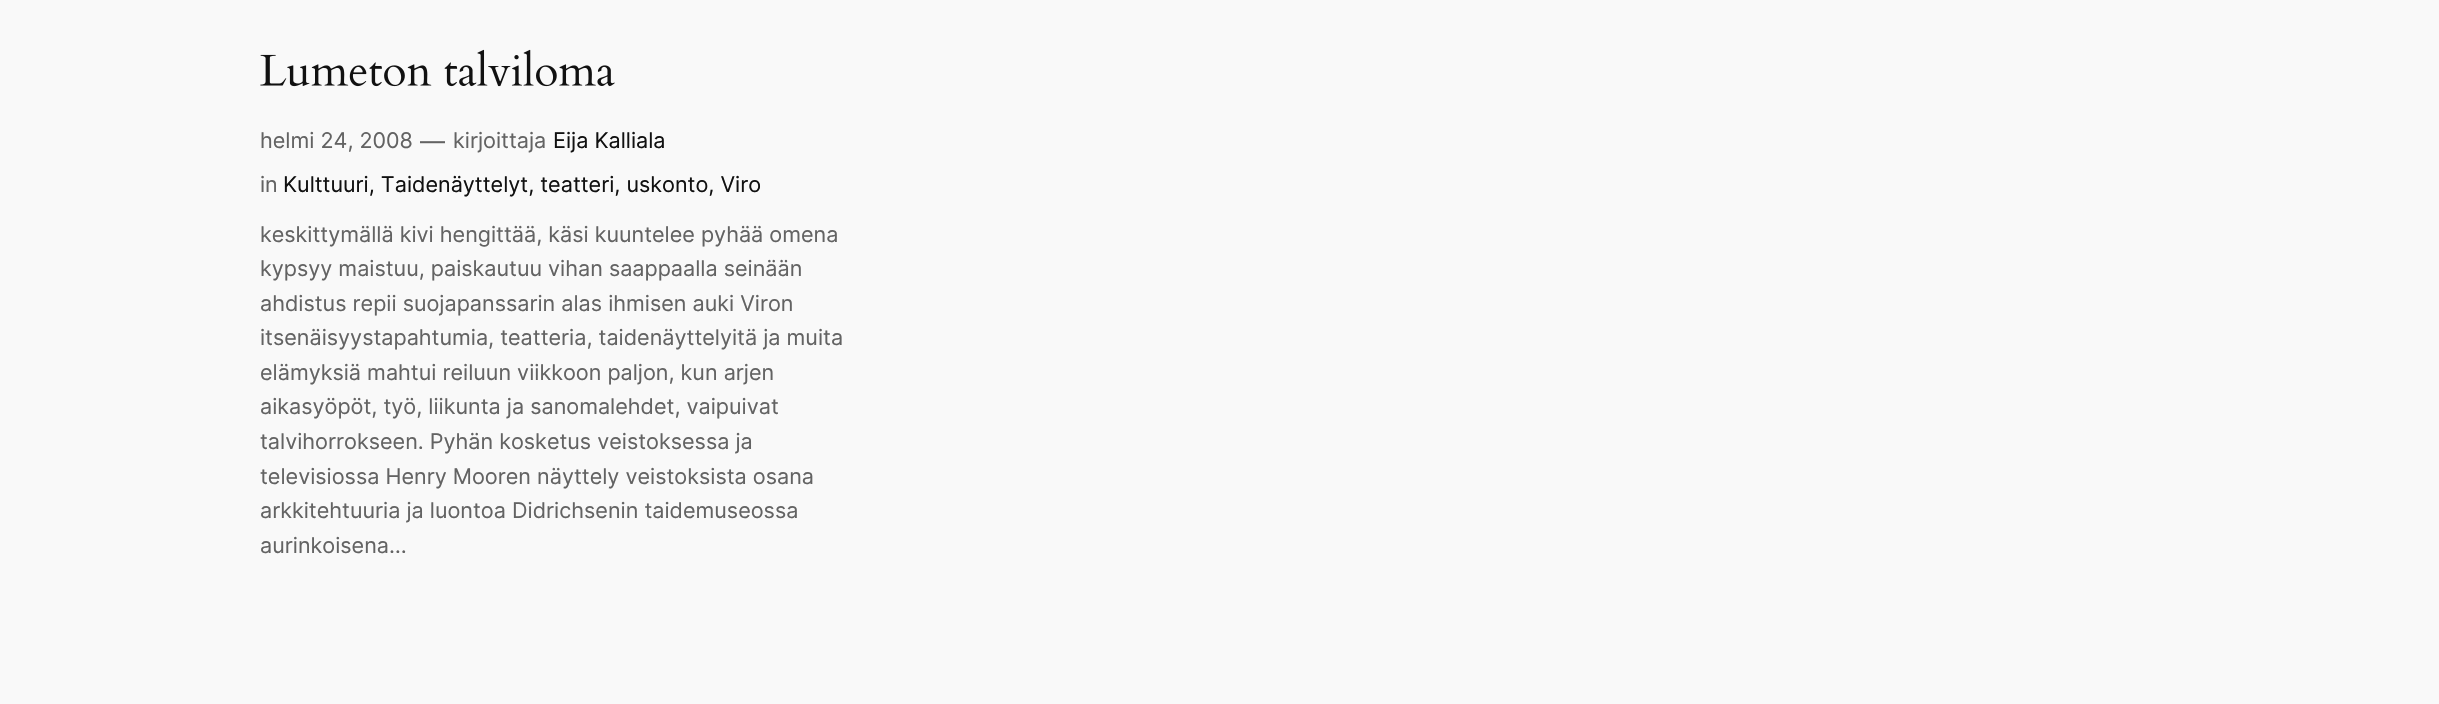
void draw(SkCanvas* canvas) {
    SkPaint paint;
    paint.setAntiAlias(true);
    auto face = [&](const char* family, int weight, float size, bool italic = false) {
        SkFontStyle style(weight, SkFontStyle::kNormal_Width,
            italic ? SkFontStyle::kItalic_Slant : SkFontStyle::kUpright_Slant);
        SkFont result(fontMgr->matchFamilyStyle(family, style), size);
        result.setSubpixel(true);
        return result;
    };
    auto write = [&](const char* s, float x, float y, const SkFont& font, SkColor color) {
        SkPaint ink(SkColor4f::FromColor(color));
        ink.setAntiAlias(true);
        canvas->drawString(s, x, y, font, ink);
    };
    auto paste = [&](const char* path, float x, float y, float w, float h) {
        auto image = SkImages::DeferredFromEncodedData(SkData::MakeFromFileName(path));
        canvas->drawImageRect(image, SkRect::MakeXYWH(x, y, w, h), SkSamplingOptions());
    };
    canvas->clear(SkColorSetRGB(249, 249, 249));
    paste("pic1.png", 260, 49, 355, 38);
    auto kFont1 = face("Inter", 400, 21.6f);
    write("helmi 24, 2008", 260, 148, kFont1, SkColorSetRGB(99, 99, 99));
    auto kFont2 = face("Inter", 400, 25);
    write("—", 420, 150, kFont2, SkColorSetRGB(99, 99, 99));
    write("kirjoittaja", 453, 148, kFont1, SkColorSetRGB(99, 99, 99));
    write("Eija Kalliala", 553, 148, kFont1, SkColorSetRGB(17, 17, 17));
    write("in", 260, 192, kFont1, SkColorSetRGB(99, 99, 99));
    write("Kulttuuri, Taidenäyttelyt, teatteri, uskonto, Viro", 283, 192, kFont1, SkColorSetRGB(17, 17, 17));
    write("keskittymällä kivi hengittää, käsi kuuntelee pyhää omena", 260, 242, kFont1, SkColorSetRGB(99, 99, 99));
    write("kypsyy maistuu, paiskautuu vihan saappaalla seinään", 260, 276, kFont1, SkColorSetRGB(99, 99, 99));
    write("ahdistus repii suojapanssarin alas ihmisen auki Viron", 260, 311, kFont1, SkColorSetRGB(99, 99, 99));
    write("itsenäisyystapahtumia, teatteria, taidenäyttelyitä ja muita", 260, 345, kFont1, SkColorSetRGB(99, 99, 99));
    write("elämyksiä mahtui reiluun viikkoon paljon, kun arjen", 260, 380, kFont1, SkColorSetRGB(99, 99, 99));
    write("aikasyöpöt, työ, liikunta ja sanomalehdet, vaipuivat", 260, 414, kFont1, SkColorSetRGB(99, 99, 99));
    write("talvihorrokseen. Pyhän kosketus veistoksessa ja", 260, 449, kFont1, SkColorSetRGB(99, 99, 99));
    write("televisiossa Henry Mooren näyttely veistoksista osana", 260, 484, kFont1, SkColorSetRGB(99, 99, 99));
    write("arkkitehtuuria ja luontoa Didrichsenin taidemuseossa", 260, 518, kFont1, SkColorSetRGB(99, 99, 99));
    write("aurinkoisena…", 260, 553, kFont1, SkColorSetRGB(99, 99, 99));
}
